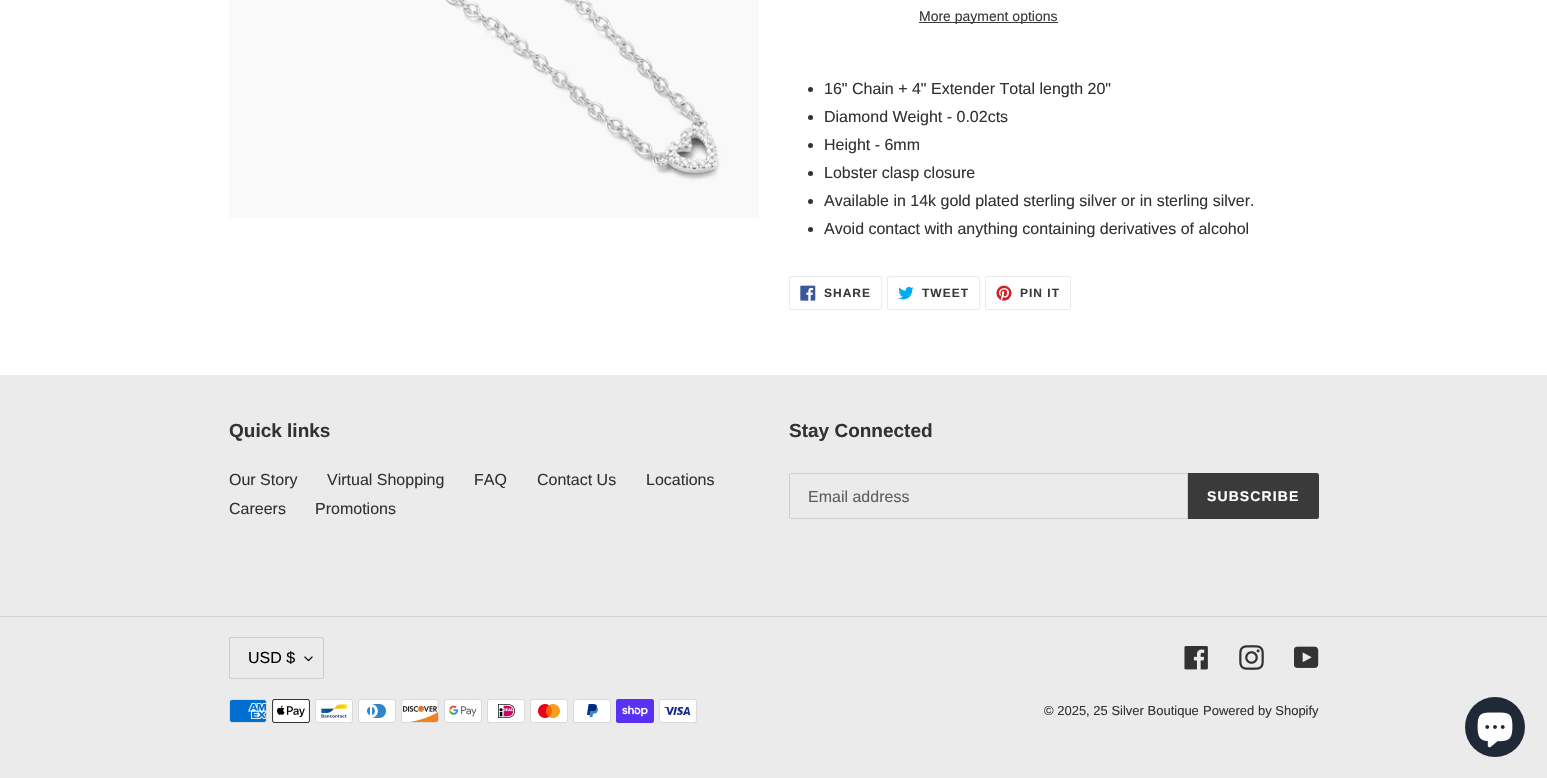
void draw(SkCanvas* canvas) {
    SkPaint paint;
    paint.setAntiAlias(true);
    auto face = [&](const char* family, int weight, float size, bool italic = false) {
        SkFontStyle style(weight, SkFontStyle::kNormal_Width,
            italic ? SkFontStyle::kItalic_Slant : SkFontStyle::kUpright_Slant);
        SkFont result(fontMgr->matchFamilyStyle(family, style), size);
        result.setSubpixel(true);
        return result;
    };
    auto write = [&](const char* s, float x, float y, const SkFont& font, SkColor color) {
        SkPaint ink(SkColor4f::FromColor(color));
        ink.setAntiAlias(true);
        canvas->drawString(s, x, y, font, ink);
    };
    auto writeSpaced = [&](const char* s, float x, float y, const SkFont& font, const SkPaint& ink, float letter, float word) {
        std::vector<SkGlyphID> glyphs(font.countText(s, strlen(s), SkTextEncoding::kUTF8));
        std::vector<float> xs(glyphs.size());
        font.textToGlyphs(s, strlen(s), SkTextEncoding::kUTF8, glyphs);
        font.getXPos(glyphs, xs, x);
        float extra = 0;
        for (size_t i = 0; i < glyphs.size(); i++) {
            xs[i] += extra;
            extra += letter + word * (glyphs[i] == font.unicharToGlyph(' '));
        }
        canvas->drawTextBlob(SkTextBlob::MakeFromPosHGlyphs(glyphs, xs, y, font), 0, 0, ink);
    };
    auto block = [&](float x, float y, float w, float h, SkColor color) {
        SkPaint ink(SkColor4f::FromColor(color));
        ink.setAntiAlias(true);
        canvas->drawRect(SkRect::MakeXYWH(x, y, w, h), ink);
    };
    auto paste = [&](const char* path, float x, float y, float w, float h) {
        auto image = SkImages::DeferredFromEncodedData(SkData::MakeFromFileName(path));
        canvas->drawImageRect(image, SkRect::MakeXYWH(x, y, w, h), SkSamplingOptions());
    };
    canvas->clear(SK_ColorWHITE);
    paste("pic1.png", 229, 0, 530, 218);
    block(919, 22, 139, 1, SkColorSetRGB(58, 58, 58));
    auto kFont1 = face("Liberation Sans", 400, 14);
    write("More payment options", 919, 21, kFont1, SkColorSetRGB(58, 58, 58));
    paint.setColor(SkColorSetRGB(51, 50, 50));
    canvas->drawCircle(810.5f, 89.5f, 2.5f, paint);
    auto kFont2 = face("Liberation Sans", 400, 16);
    write("16\" Chain + 4\" Extender Total length 20\"", 824, 94, kFont2, SkColorSetRGB(51, 50, 50));
    canvas->drawCircle(810.5f, 117.5f, 2.5f, paint);
    write("Diamond Weight - 0.02cts", 824, 122, kFont2, SkColorSetRGB(51, 50, 50));
    canvas->drawCircle(810.5f, 145.5f, 2.5f, paint);
    write("Height - 6mm", 824, 150, kFont2, SkColorSetRGB(51, 50, 50));
    canvas->drawCircle(810.5f, 173.5f, 2.5f, paint);
    write("Lobster clasp closure", 824, 178, kFont2, SkColorSetRGB(51, 50, 50));
    canvas->drawCircle(810.5f, 201.5f, 2.5f, paint);
    write("Available in 14k gold plated sterling silver or in sterling silver.", 824, 206, kFont2, SkColorSetRGB(51, 50, 50));
    canvas->drawCircle(810.5f, 229.5f, 2.5f, paint);
    write("Avoid contact with anything containing derivatives of alcohol", 824, 234, kFont2, SkColorSetRGB(51, 50, 50));
    paint.setStyle(SkPaint::kStroke_Style);
    paint.setStrokeWidth(1);
    paint.setColor(SkColorSetRGB(235, 235, 235));
    canvas->drawRoundRect(SkRect::MakeXYWH(789.5f, 276.5f, 92, 33), 1.5f, 1.5f, paint);
    paste("pic2.png", 800, 285, 16, 16);
    auto kFont3 = face("Liberation Sans", 700, 12);
    paint.setStyle(SkPaint::kFill_Style);
    paint.setColor(SkColorSetRGB(58, 58, 58));
    writeSpaced("SHARE", 824, 297, kFont3, paint, 1, 0);
    paint.setStyle(SkPaint::kStroke_Style);
    paint.setColor(SkColorSetRGB(235, 235, 235));
    canvas->drawRoundRect(SkRect::MakeXYWH(887.5f, 276.5f, 92, 33), 1.5f, 1.5f, paint);
    paste("pic3.png", 898, 286, 16, 14);
    paint.setStyle(SkPaint::kFill_Style);
    paint.setColor(SkColorSetRGB(58, 58, 58));
    writeSpaced("TWEET", 922, 297, kFont3, paint, 1, 0);
    paint.setStyle(SkPaint::kStroke_Style);
    paint.setColor(SkColorSetRGB(235, 235, 235));
    canvas->drawRoundRect(SkRect::MakeXYWH(985.5f, 276.5f, 85, 33), 1.5f, 1.5f, paint);
    paste("pic4.png", 996, 285, 16, 16);
    paint.setStyle(SkPaint::kFill_Style);
    paint.setColor(SkColorSetRGB(58, 58, 58));
    writeSpaced("PIN IT", 1020, 297, kFont3, paint, 1, 0);
    block(0, 375, 1547, 403, SkColorSetRGB(235, 235, 235));
    auto kFont4 = face("Liberation Sans", 700, 19);
    write("Quick links", 229, 437, kFont4, SkColorSetRGB(51, 50, 50));
    write("Our Story", 229, 485, kFont2, SkColorSetRGB(51, 50, 50));
    write("Virtual Shopping", 327, 485, kFont2, SkColorSetRGB(51, 50, 50));
    write("FAQ", 474, 485, kFont2, SkColorSetRGB(51, 50, 50));
    write("Contact Us", 537, 485, kFont2, SkColorSetRGB(51, 50, 50));
    write("Locations", 646, 485, kFont2, SkColorSetRGB(51, 50, 50));
    write("Careers", 229, 514, kFont2, SkColorSetRGB(51, 50, 50));
    write("Promotions", 315, 514, kFont2, SkColorSetRGB(51, 50, 50));
    write("Stay Connected", 789, 437, kFont4, SkColorSetRGB(51, 50, 50));
    paint.setStyle(SkPaint::kStroke_Style);
    paint.setColor(SkColorSetRGB(204, 204, 204));
    canvas->drawPath(SkPathBuilder().moveTo(791, 473.5f).lineTo(1187.5f, 473.5f).lineTo(1187.5f, 518.5f).lineTo(791, 518.5f).cubicTo(790, 518.5f, 789.5f, 518, 789.5f, 517).lineTo(789.5f, 475).cubicTo(789.5f, 474, 790, 473.5f, 791, 473.5f).close().detach(), paint);
    write("Email address", 808, 502, kFont2, SkColorSetRGB(94, 94, 94));
    paint.setStyle(SkPaint::kFill_Style);
    paint.setColor(SkColorSetRGB(58, 58, 58));
    canvas->drawPath(SkPathBuilder().moveTo(1188, 473).lineTo(1317, 473).cubicTo(1318, 473, 1319, 474, 1319, 475).lineTo(1319, 517).cubicTo(1319, 518, 1318, 519, 1317, 519).lineTo(1188, 519).close().detach(), paint);
    auto kFont5 = face("Liberation Sans", 700, 14);
    paint.setColor(SK_ColorWHITE);
    writeSpaced("SUBSCRIBE", 1207, 501, kFont5, paint, 1.1f, 0);
    block(0, 616, 1547, 1, SkColorSetRGB(210, 210, 210));
    paste("pic5.png", 304, 656, 9, 6);
    paint.setStyle(SkPaint::kStroke_Style);
    paint.setColor(SkColorSetRGB(204, 204, 204));
    canvas->drawRoundRect(SkRect::MakeXYWH(229.5f, 637.5f, 94, 41), 1.5f, 1.5f, paint);
    write("USD $", 248, 663, kFont2, SK_ColorBLACK);
    paste("pic6.png", 1184, 646, 24, 24);
    paste("pic7.png", 1239, 645, 25, 25);
    paste("pic8.png", 1294, 646, 25, 22);
    paste("pic9.png", 229, 699, 38, 24);
    paste("pic10.png", 272, 699, 38, 24);
    paste("pic11.png", 315, 699, 38, 24);
    paste("pic12.png", 358, 699, 38, 24);
    paste("pic13.png", 401, 699, 38, 24);
    paste("pic14.png", 444, 699, 38, 24);
    paste("pic15.png", 487, 699, 38, 24);
    paste("pic16.png", 530, 699, 38, 24);
    paste("pic17.png", 573, 699, 38, 24);
    paste("pic18.png", 616, 699, 38, 24);
    paste("pic19.png", 659, 699, 38, 24);
    auto kFont6 = face("Liberation Sans", 400, 13);
    write("© 2025, 25 Silver Boutique", 1044, 715, kFont6, SkColorSetRGB(51, 50, 50));
    write("Powered by Shopify", 1203, 715, kFont6, SkColorSetRGB(51, 50, 50));
    paint.setStyle(SkPaint::kFill_Style);
    paint.setColor(SkColorSetRGB(32, 42, 54));
    canvas->drawCircle(1495, 727, 30, paint);
    paste("pic20.png", 1477, 712, 36, 36);
}
